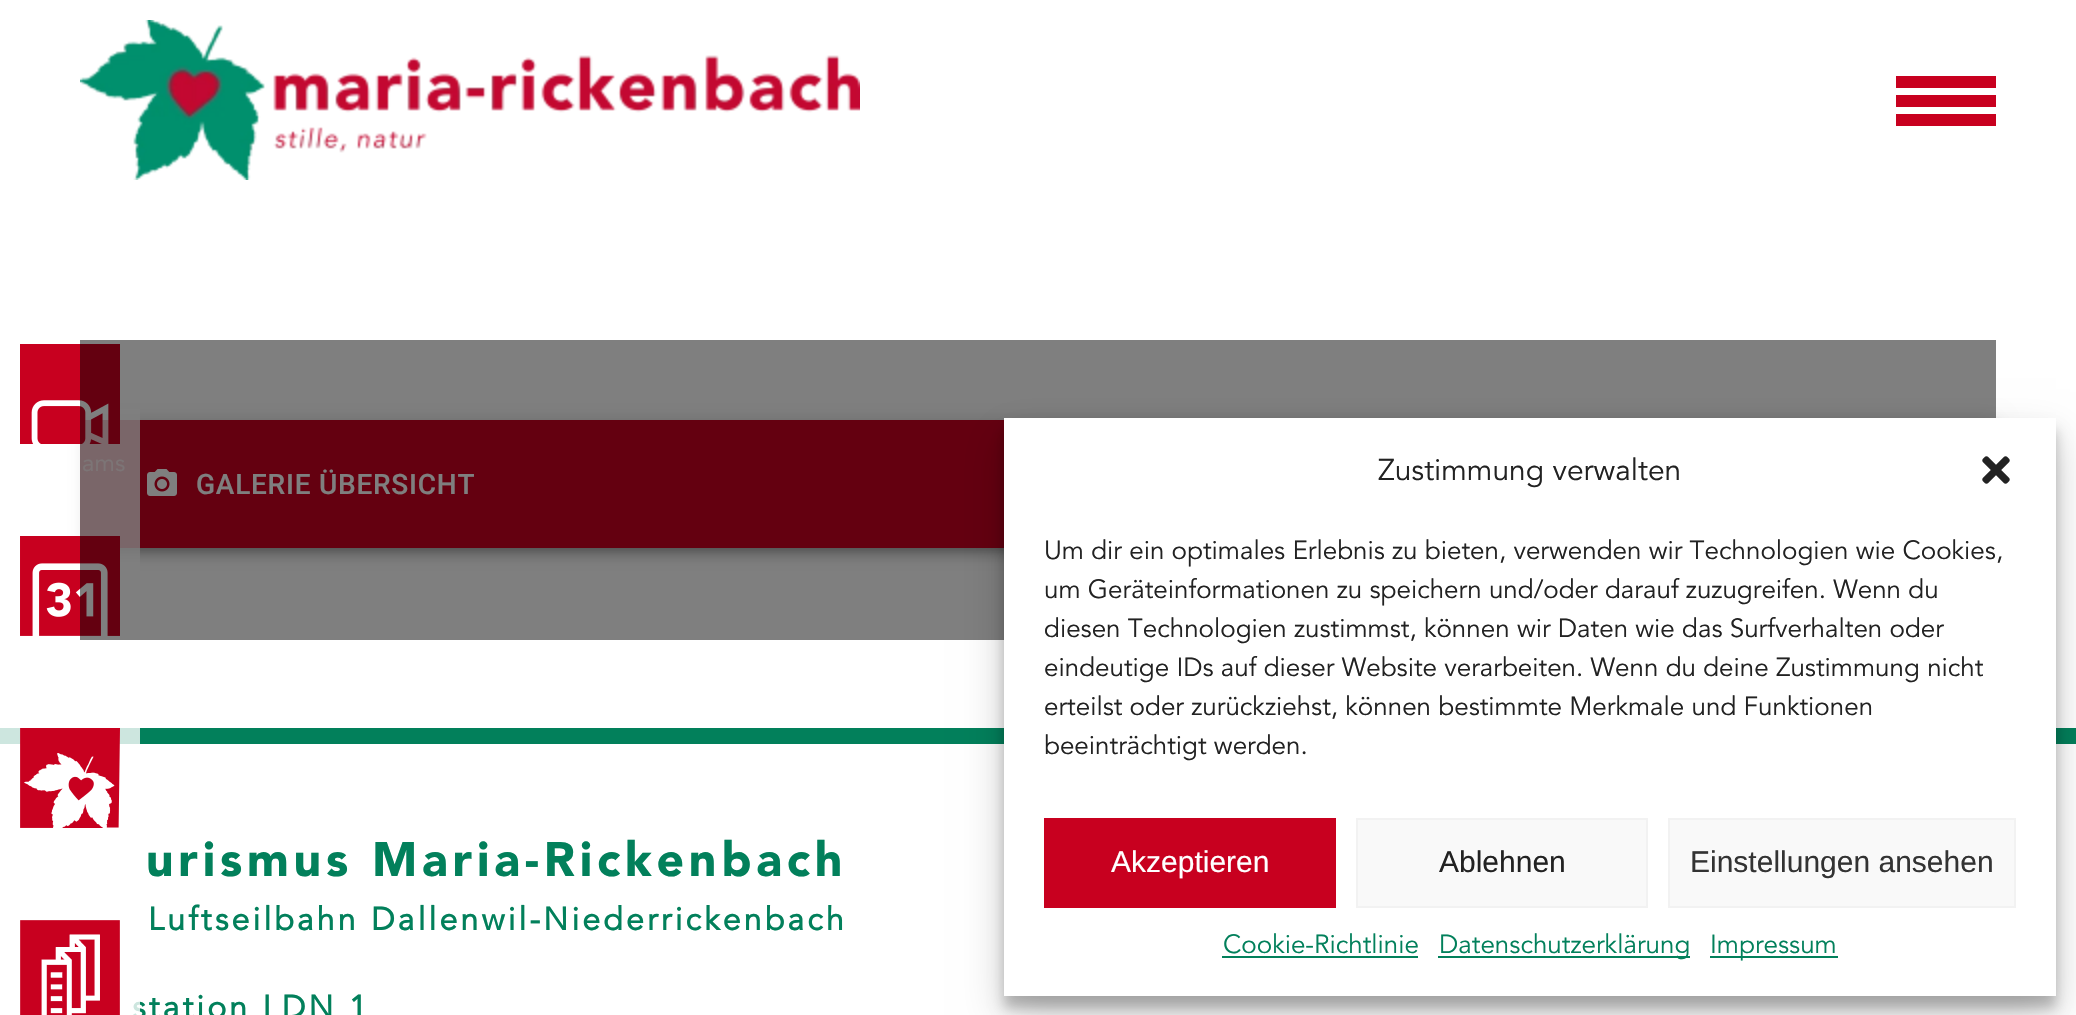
void draw(SkCanvas* canvas) {
    SkPaint paint;
    paint.setAntiAlias(true);
    auto face = [&](const char* family, int weight, float size, bool italic = false) {
        SkFontStyle style(weight, SkFontStyle::kNormal_Width,
            italic ? SkFontStyle::kItalic_Slant : SkFontStyle::kUpright_Slant);
        SkFont result(fontMgr->matchFamilyStyle(family, style), size);
        result.setSubpixel(true);
        return result;
    };
    auto write = [&](const char* s, float x, float y, const SkFont& font, SkColor color) {
        SkPaint ink(SkColor4f::FromColor(color));
        ink.setAntiAlias(true);
        canvas->drawString(s, x, y, font, ink);
    };
    auto writeSpaced = [&](const char* s, float x, float y, const SkFont& font, const SkPaint& ink, float letter, float word) {
        std::vector<SkGlyphID> glyphs(font.countText(s, strlen(s), SkTextEncoding::kUTF8));
        std::vector<float> xs(glyphs.size());
        font.textToGlyphs(s, strlen(s), SkTextEncoding::kUTF8, glyphs);
        font.getXPos(glyphs, xs, x);
        float extra = 0;
        for (size_t i = 0; i < glyphs.size(); i++) {
            xs[i] += extra;
            extra += letter + word * (glyphs[i] == font.unicharToGlyph(' '));
        }
        canvas->drawTextBlob(SkTextBlob::MakeFromPosHGlyphs(glyphs, xs, y, font), 0, 0, ink);
    };
    auto block = [&](float x, float y, float w, float h, SkColor color) {
        SkPaint ink(SkColor4f::FromColor(color));
        ink.setAntiAlias(true);
        canvas->drawRect(SkRect::MakeXYWH(x, y, w, h), ink);
    };
    auto paste = [&](const char* path, float x, float y, float w, float h) {
        auto image = SkImages::DeferredFromEncodedData(SkData::MakeFromFileName(path));
        canvas->drawImageRect(image, SkRect::MakeXYWH(x, y, w, h), SkSamplingOptions());
    };
    canvas->clear(SK_ColorWHITE);
    paste("pic1.png", 80, 20, 780, 160);
    block(1896, 76, 100, 12, SkColorSetRGB(200, 0, 31));
    block(1896, 95, 100, 12, SkColorSetRGB(200, 0, 31));
    block(1896, 114, 100, 12, SkColorSetRGB(200, 0, 31));
    paint.setColor(SkColorSetARGB(31, 0, 0, 0));
    paint.setMaskFilter(SkMaskFilter::MakeBlur(kNormal_SkBlurStyle, 10));
    canvas->drawRect(SkRect::MakeXYWH(80, 422, 1916, 128), paint);
    paint.setMaskFilter(nullptr);
    paint.setColor(SkColorSetARGB(36, 0, 0, 0));
    paint.setMaskFilter(SkMaskFilter::MakeBlur(kNormal_SkBlurStyle, 5));
    canvas->drawRect(SkRect::MakeXYWH(80, 428, 1916, 128), paint);
    paint.setMaskFilter(nullptr);
    paint.setColor(SkColorSetARGB(51, 0, 0, 0));
    paint.setMaskFilter(SkMaskFilter::MakeBlur(kNormal_SkBlurStyle, 4));
    canvas->drawRect(SkRect::MakeXYWH(82, 426, 1912, 124), paint);
    paint.setMaskFilter(nullptr);
    block(80, 420, 924, 128, SkColorSetRGB(200, 0, 31));
    block(0, 728, 2076, 16, SkColorSetRGB(2, 128, 91));
    auto kFont1 = face("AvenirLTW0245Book", 700, 32);
    paint.setColor(SkColorSetRGB(2, 128, 91));
    writeSpaced("station LDN 1", 132, 1018, kFont1, paint, 3.2f, 0);
    block(0, 409, 140, 606, SkColorSetARGB(204, 255, 255, 255));
    paste("pic2.png", 20, 344, 100, 100);
    auto kFont2 = face("AvenirLTW0245Book", 400, 24);
    write("ams", 82, 471, kFont2, SkColorSetRGB(250, 235, 237));
    paste("pic3.png", 20, 536, 100, 100);
    paste("pic4.png", 20, 728, 100, 100);
    paste("pic5.png", 20, 920, 100, 95);
    paste("pic6.png", 147, 469, 30, 27);
    auto kFont3 = face("Roboto", 500, 28);
    paint.setColor(SK_ColorWHITE);
    writeSpaced("GALERIE ÜBERSICHT", 196, 494, kFont3, paint, 0.75f, 0);
    block(80, 340, 1916, 300, SkColorSetARGB(128, 0, 0, 0));
    auto kFont4 = face("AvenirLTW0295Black", 900, 48);
    paint.setColor(SkColorSetRGB(2, 128, 91));
    writeSpaced("urismus Maria-Rickenbach", 146, 876, kFont4, paint, 4.8f, 0);
    writeSpaced("Luftseilbahn Dallenwil-Niederrickenbach", 148, 930, kFont1, paint, 3.2f, 0);
    paint.setColor(SkColorSetARGB(59, 0, 0, 0));
    paint.setMaskFilter(SkMaskFilter::MakeBlur(kNormal_SkBlurStyle, 6));
    canvas->drawRect(SkRect::MakeXYWH(1004, 430, 1052, 578), paint);
    paint.setMaskFilter(nullptr);
    paint.setColor(SkColorSetARGB(48, 0, 0, 0));
    paint.setMaskFilter(SkMaskFilter::MakeBlur(kNormal_SkBlurStyle, 20));
    canvas->drawRect(SkRect::MakeXYWH(1004, 438, 1052, 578), paint);
    paint.setMaskFilter(nullptr);
    block(1004, 418, 1052, 578, SK_ColorWHITE);
    auto kFont5 = face("AvenirLTW0245Book", 400, 30);
    write("Zustimmung verwalten", 1378, 480, kFont5, SkColorSetRGB(34, 34, 34));
    paste("pic7.png", 1982, 456, 28, 28);
    auto kFont6 = face("AvenirLTW0245Book", 400, 26);
    write("Um dir ein optimales Erlebnis zu bieten, verwenden wir Technologien wie Cookies,", 1044, 559, kFont6, SkColorSetRGB(34, 34, 34));
    write("um Geräteinformationen zu speichern und/oder darauf zuzugreifen. Wenn du", 1044, 598, kFont6, SkColorSetRGB(34, 34, 34));
    write("diesen Technologien zustimmst, können wir Daten wie das Surfverhalten oder", 1044, 637, kFont6, SkColorSetRGB(34, 34, 34));
    write("eindeutige IDs auf dieser Website verarbeiten. Wenn du deine Zustimmung nicht", 1044, 676, kFont6, SkColorSetRGB(34, 34, 34));
    write("erteilst oder zurückziehst, können bestimmte Merkmale und Funktionen", 1044, 715, kFont6, SkColorSetRGB(34, 34, 34));
    write("beeinträchtigt werden.", 1044, 754, kFont6, SkColorSetRGB(34, 34, 34));
    block(1044, 818, 292, 90, SkColorSetRGB(200, 0, 31));
    auto kFont7 = face("Liberation Sans", 400, 30);
    write("Akzeptieren", 1111, 872, kFont7, SK_ColorWHITE);
    paint.setColor(SkColorSetRGB(249, 249, 249));
    canvas->drawRect(SkRect::MakeXYWH(1357, 819, 290, 88), paint);
    paint.setStyle(SkPaint::kStroke_Style);
    paint.setStrokeWidth(2);
    paint.setColor(SkColorSetRGB(242, 242, 242));
    canvas->drawRect(SkRect::MakeXYWH(1357, 819, 290, 88), paint);
    write("Ablehnen", 1439, 872, kFont7, SkColorSetRGB(34, 34, 34));
    paint.setStyle(SkPaint::kFill_Style);
    paint.setColor(SkColorSetRGB(249, 249, 249));
    canvas->drawRect(SkRect::MakeXYWH(1669, 819, 346, 88), paint);
    paint.setStyle(SkPaint::kStroke_Style);
    paint.setColor(SkColorSetRGB(242, 242, 242));
    canvas->drawRect(SkRect::MakeXYWH(1669, 819, 346, 88), paint);
    write("Einstellungen ansehen", 1690, 872, kFont7, SkColorSetRGB(51, 51, 51));
    write("Cookie-Richtlinie", 1223, 953, kFont6, SkColorSetRGB(2, 128, 91));
    block(1222, 956, 196, 2, SkColorSetRGB(2, 128, 91));
    block(1438, 956, 252, 2, SkColorSetRGB(2, 128, 91));
    write("Datenschutzerklärung", 1439, 953, kFont6, SkColorSetRGB(2, 128, 91));
    block(1710, 956, 128, 2, SkColorSetRGB(2, 128, 91));
    write("Impressum", 1710, 953, kFont6, SkColorSetRGB(2, 128, 91));
}
